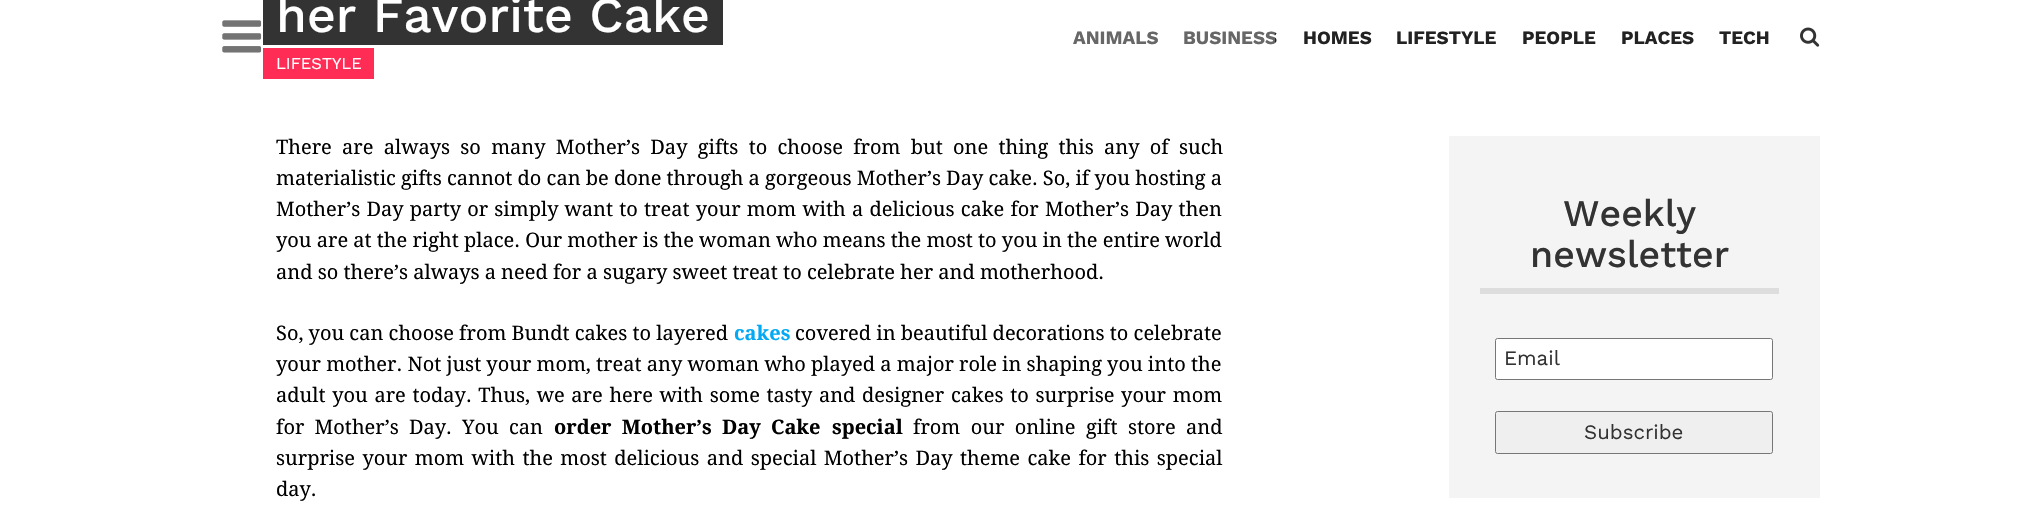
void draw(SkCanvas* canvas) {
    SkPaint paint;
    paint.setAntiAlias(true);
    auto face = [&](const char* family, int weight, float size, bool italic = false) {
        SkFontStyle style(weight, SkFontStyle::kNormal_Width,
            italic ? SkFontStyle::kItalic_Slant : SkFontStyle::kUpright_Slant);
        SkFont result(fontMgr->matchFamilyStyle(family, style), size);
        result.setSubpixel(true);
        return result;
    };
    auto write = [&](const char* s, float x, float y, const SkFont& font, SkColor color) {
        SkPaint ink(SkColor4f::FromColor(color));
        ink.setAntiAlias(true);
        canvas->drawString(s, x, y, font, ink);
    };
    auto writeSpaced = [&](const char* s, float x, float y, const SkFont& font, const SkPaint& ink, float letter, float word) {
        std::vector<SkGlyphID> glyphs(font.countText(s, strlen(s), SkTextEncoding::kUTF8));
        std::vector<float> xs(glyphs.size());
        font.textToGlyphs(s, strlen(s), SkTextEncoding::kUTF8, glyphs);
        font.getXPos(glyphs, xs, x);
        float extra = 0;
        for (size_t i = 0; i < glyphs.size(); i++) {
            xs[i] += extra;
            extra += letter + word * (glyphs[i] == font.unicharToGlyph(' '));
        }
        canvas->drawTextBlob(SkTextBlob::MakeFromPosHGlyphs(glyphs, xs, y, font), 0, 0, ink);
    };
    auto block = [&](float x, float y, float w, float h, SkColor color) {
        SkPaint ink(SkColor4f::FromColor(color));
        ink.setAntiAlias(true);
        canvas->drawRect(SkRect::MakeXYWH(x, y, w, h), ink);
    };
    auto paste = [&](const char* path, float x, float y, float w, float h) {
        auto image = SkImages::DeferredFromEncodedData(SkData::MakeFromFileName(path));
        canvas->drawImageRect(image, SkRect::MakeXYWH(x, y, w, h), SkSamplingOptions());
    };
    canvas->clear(SK_ColorWHITE);
    paste("pic1.png", 222, 20, 40, 33);
    auto kFont1 = face("Work Sans", 700, 18.75f);
    write("ANIMALS", 1073, 44, kFont1, SkColorSetRGB(34, 34, 34));
    write("BUSINESS", 1183, 44, kFont1, SkColorSetRGB(34, 34, 34));
    block(223, 20, 1052, 33, SkColorSetARGB(79, 255, 255, 255));
    block(275, 0, 435, 45, SkColorSetARGB(204, 0, 0, 0));
    auto kFont2 = face("Work Sans", 500, 50);
    write("her Favorite Cake", 276, 32, kFont2, SK_ColorWHITE);
    paint.setColor(SkColorSetARGB(204, 0, 0, 0));
    canvas->drawPath(SkPathBuilder().moveTo(263, -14).lineTo(263, 45).lineTo(275, 45).lineTo(275, -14).lineTo(698, -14).close().detach(), paint);
    canvas->drawPath(SkPathBuilder().moveTo(288, -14).lineTo(710, -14).lineTo(710, 45).lineTo(723, 45).lineTo(723, -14).close().detach(), paint);
    block(275, 48, 86, 31, SkColorSetRGB(255, 45, 85));
    auto kFont3 = face("Work Sans", 400, 16.5f);
    write("LIFESTYLE", 276, 69, kFont3, SK_ColorWHITE);
    paint.setColor(SkColorSetRGB(255, 45, 85));
    canvas->drawPath(SkPathBuilder().moveTo(263, 48).lineTo(263, 79).lineTo(349, 79).lineTo(275, 79).lineTo(275, 48).close().detach(), paint);
    canvas->drawPath(SkPathBuilder().moveTo(288, 79).lineTo(374, 79).lineTo(374, 48).lineTo(361, 48).lineTo(361, 79).close().detach(), paint);
    auto kFont4 = face("Droid Serif", 400, 20);
    paint.setColor(SK_ColorBLACK);
    writeSpaced("There are always so many Mother’s Day gifts to choose from but one thing this any of such", 276, 154, kFont4, paint, 0, 5.1f);
    write("materialistic gifts cannot do can be done through a gorgeous Mother’s Day cake. So, if you hosting a", 276, 185, kFont4, SK_ColorBLACK);
    writeSpaced("Mother’s Day party or simply want to treat your mom with a delicious cake for Mother’s Day then", 276, 216, kFont4, paint, 0, 1);
    write("you are at the right place. Our mother is the woman who means the most to you in the entire world", 276, 247, kFont4, SK_ColorBLACK);
    write("and so there’s always a need for a sugary sweet treat to celebrate her and motherhood.", 276, 279, kFont4, SK_ColorBLACK);
    write("So, you can choose from Bundt cakes to layered", 276, 340, kFont4, SK_ColorBLACK);
    auto kFont5 = face("Droid Serif", 700, 20);
    write("cakes", 734, 340, kFont5, SkColorSetRGB(3, 169, 244));
    write("covered in beautiful decorations to celebrate", 795, 340, kFont4, SK_ColorBLACK);
    write("your mother. Not just your mom, treat any woman who played a major role in shaping you into the", 276, 371, kFont4, SK_ColorBLACK);
    writeSpaced("adult you are today. Thus, we are here with some tasty and designer cakes to surprise your mom", 276, 402, kFont4, paint, 0, 1.5f);
    writeSpaced("for Mother’s Day. You can", 276, 434, kFont4, paint, 0, 5);
    writeSpaced("order Mother’s Day Cake", 554, 434, kFont5, paint, 0, 5);
    write("special", 832, 434, kFont5, SK_ColorBLACK);
    writeSpaced("from our online gift store and", 913, 434, kFont4, paint, 0, 5.25f);
    writeSpaced("surprise your mom with the most delicious and special Mother’s Day theme cake for this special", 276, 465, kFont4, paint, 0, 2.25f);
    write("day.", 276, 496, kFont4, SK_ColorBLACK);
    block(1449, 136, 371, 362, SkColorSetRGB(244, 244, 244));
    block(1480, 288, 299, 6, SkColorSetRGB(221, 221, 221));
    auto kFont6 = face("Work Sans", 500, 37.5f);
    write("Weekly", 1563, 226, kFont6, SkColorSetRGB(51, 51, 51));
    write("newsletter", 1530, 267, kFont6, SkColorSetRGB(51, 51, 51));
    paint.setColor(SK_ColorWHITE);
    canvas->drawRoundRect(SkRect::MakeXYWH(1495.5f, 338.5f, 277, 41), 2, 2, paint);
    paint.setStyle(SkPaint::kStroke_Style);
    paint.setStrokeWidth(1);
    paint.setColor(SkColorSetRGB(118, 118, 118));
    canvas->drawRoundRect(SkRect::MakeXYWH(1495.5f, 338.5f, 277, 41), 2, 2, paint);
    auto kFont7 = face("Work Sans", 400, 20.5f);
    write("Email", 1504, 365, kFont7, SkColorSetRGB(51, 51, 51));
    paint.setStyle(SkPaint::kFill_Style);
    paint.setColor(SkColorSetRGB(239, 239, 239));
    canvas->drawRoundRect(SkRect::MakeXYWH(1495.5f, 411.5f, 277, 42), 2, 2, paint);
    paint.setStyle(SkPaint::kStroke_Style);
    paint.setColor(SkColorSetRGB(118, 118, 118));
    canvas->drawRoundRect(SkRect::MakeXYWH(1495.5f, 411.5f, 277, 42), 2, 2, paint);
    write("Subscribe", 1584, 439, kFont7, SkColorSetRGB(51, 51, 51));
    write("HOMES", 1303, 44, kFont1, SkColorSetRGB(34, 34, 34));
    write("LIFESTYLE", 1396, 44, kFont1, SkColorSetRGB(34, 34, 34));
    write("PEOPLE", 1522, 44, kFont1, SkColorSetRGB(34, 34, 34));
    write("PLACES", 1621, 44, kFont1, SkColorSetRGB(34, 34, 34));
    write("TECH", 1719, 44, kFont1, SkColorSetRGB(34, 34, 34));
    paste("pic2.png", 1800, 27, 20, 20);
}
